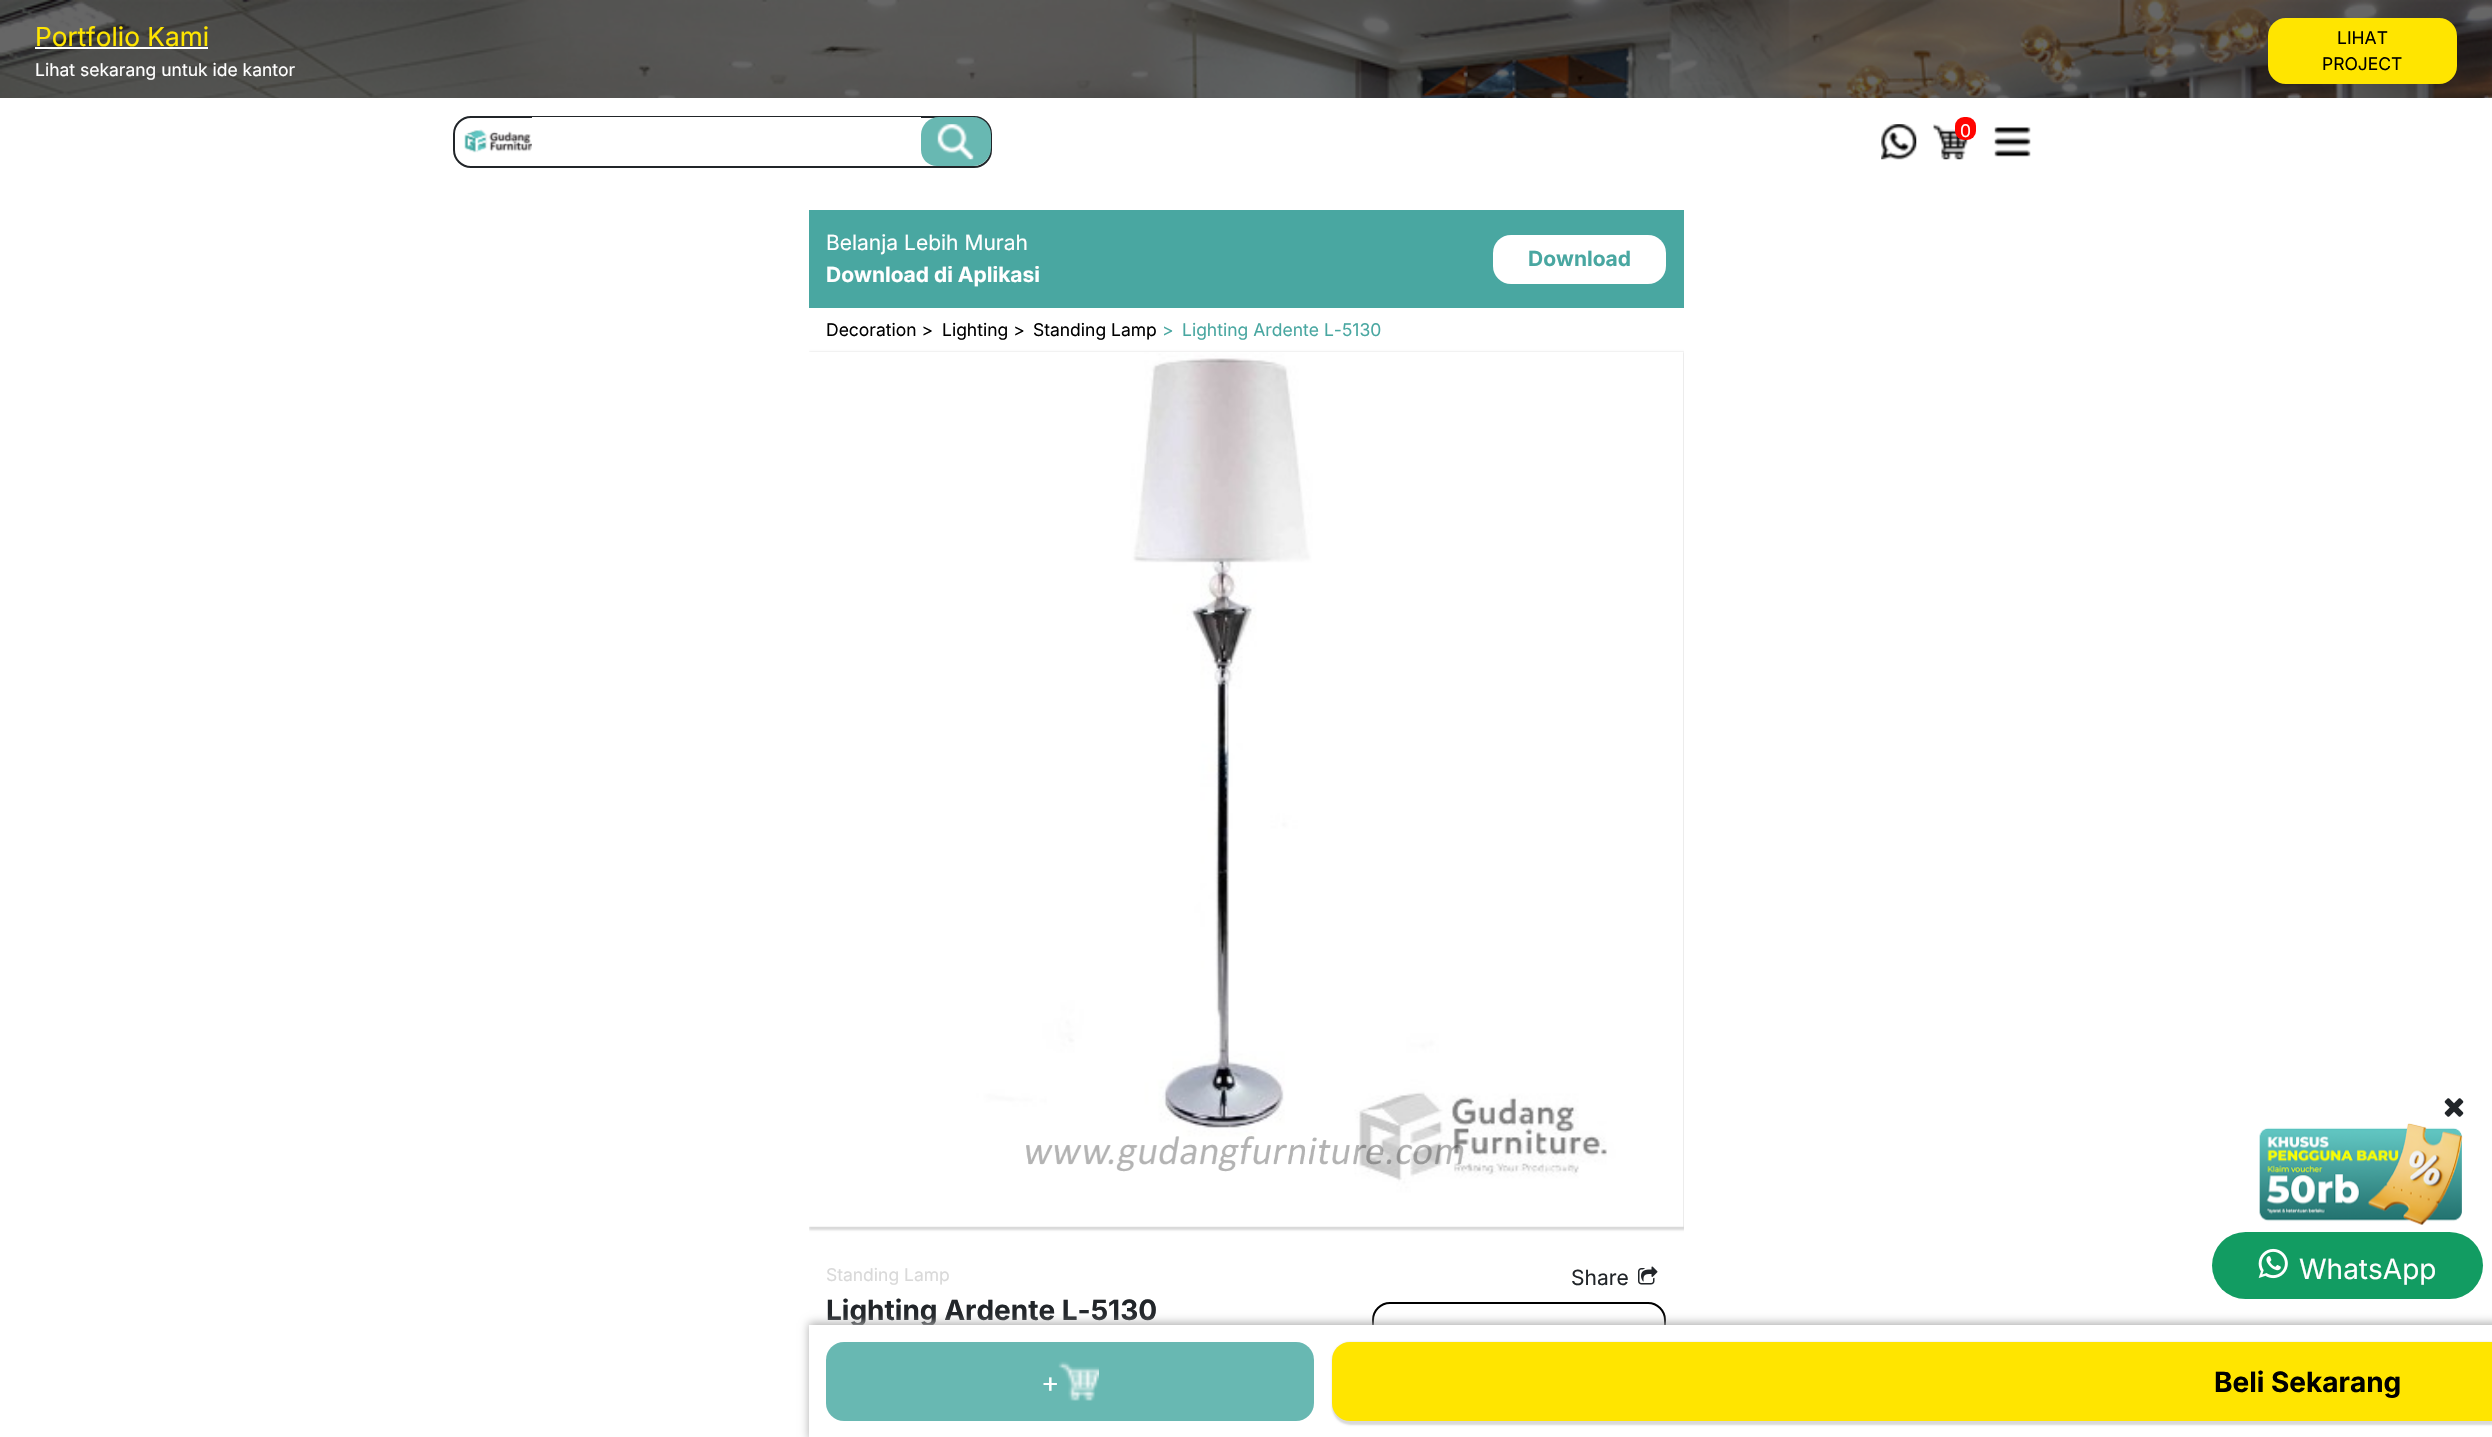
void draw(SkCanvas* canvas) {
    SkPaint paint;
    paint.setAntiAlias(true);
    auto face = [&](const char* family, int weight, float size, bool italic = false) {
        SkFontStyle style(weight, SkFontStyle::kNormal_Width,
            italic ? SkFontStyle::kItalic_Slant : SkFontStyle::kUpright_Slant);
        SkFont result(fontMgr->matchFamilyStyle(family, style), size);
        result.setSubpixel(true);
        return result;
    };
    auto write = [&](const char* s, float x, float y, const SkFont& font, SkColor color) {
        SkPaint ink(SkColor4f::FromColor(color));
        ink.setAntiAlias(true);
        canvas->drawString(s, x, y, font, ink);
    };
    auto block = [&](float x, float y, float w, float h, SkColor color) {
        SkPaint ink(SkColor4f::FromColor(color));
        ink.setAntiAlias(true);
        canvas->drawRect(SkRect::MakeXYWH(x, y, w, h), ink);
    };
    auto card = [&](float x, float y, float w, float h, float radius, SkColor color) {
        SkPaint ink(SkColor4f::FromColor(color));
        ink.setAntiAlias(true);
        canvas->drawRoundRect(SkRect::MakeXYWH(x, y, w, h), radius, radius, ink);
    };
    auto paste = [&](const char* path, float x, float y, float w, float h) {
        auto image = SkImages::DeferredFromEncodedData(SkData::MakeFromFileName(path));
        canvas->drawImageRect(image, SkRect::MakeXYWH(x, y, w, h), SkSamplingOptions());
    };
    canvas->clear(SK_ColorWHITE);
    paste("pic1.png", 0, 0, 2492, 98);
    auto kFont1 = face("Inter", 400, 26.25f);
    write("Portfolio Kami", 35, 46, kFont1, SkColorSetRGB(255, 229, 0));
    block(35, 47, 173, 2, SK_ColorWHITE);
    auto kFont2 = face("Inter", 400, 17.5f);
    write("Lihat sekarang untuk ide kantor", 35, 76, kFont2, SK_ColorWHITE);
    paint.setColor(SkColorSetRGB(255, 229, 0));
    canvas->drawRoundRect(SkRect::MakeXYWH(2269, 19, 187, 64), 17, 17, paint);
    paint.setStyle(SkPaint::kStroke_Style);
    paint.setStrokeWidth(2);
    canvas->drawRoundRect(SkRect::MakeXYWH(2269, 19, 187, 64), 17, 17, paint);
    write("LIHAT", 2337, 44, kFont2, SK_ColorBLACK);
    write("PROJECT", 2322, 70, kFont2, SK_ColorBLACK);
    paint.setColor(SkColorSetRGB(33, 37, 41));
    canvas->drawRoundRect(SkRect::MakeXYWH(454, 117, 537, 50), 17, 17, paint);
    block(532, 117, 389, 1, SK_ColorWHITE);
    paste("pic2.png", 464, 129, 68, 24);
    paint.setStyle(SkPaint::kFill_Style);
    paint.setColor(SkColorSetRGB(104, 184, 178));
    canvas->drawPath(SkPathBuilder().moveTo(939, 117).lineTo(973, 117).cubicTo(983, 117, 991, 125, 991, 135).lineTo(991, 148).cubicTo(991, 158, 983, 166, 973, 166).lineTo(937, 166).cubicTo(928, 166, 921, 159, 921, 150).lineTo(921, 135).cubicTo(921, 125, 929, 117, 939, 117).close().detach(), paint);
    paste("pic3.png", 937, 124, 37, 36);
    paste("pic4.png", 1881, 124, 36, 36);
    paste("pic5.png", 1933, 124, 36, 36);
    card(1955, 117, 21, 23, 9, SkColorSetRGB(255, 4, 0));
    write("0", 1960, 137, kFont2, SK_ColorWHITE);
    paste("pic6.png", 1994, 127, 37, 30);
    block(809, 210, 875, 98, SkColorSetRGB(73, 167, 161));
    auto kFont3 = face("Inter", 400, 21);
    write("Belanja Lebih Murah", 826, 250, kFont3, SK_ColorWHITE);
    auto kFont4 = face("Inter", 700, 21);
    write("Download di Aplikasi", 826, 282, kFont4, SK_ColorWHITE);
    card(1493, 235, 173, 49, 18, SK_ColorWHITE);
    write("Download", 1528, 266, kFont4, SkColorSetRGB(73, 167, 161));
    write("Decoration >", 826, 336, kFont2, SK_ColorBLACK);
    write("Lighting >", 942, 336, kFont2, SK_ColorBLACK);
    write("Standing Lamp", 1033, 336, kFont2, SK_ColorBLACK);
    write(">", 1162, 336, kFont2, SkColorSetRGB(73, 167, 161));
    write("Lighting Ardente L-5130", 1182, 336, kFont2, SkColorSetRGB(73, 167, 161));
    canvas->save();
    canvas->clipRect(SkRect::MakeXYWH(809, 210, 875, 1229));
    paint.setColor(SkColorSetRGB(217, 217, 217));
    paint.setMaskFilter(SkMaskFilter::MakeBlur(kNormal_SkBlurStyle, 1));
    canvas->drawRect(SkRect::MakeXYWH(809, 352, 878, 878), paint);
    paint.setMaskFilter(nullptr);
    canvas->restore();
    paste("pic7.png", 809, 352, 875, 875);
    paste("pic8.png", 1026, 1136, 438, 36);
    write("Standing Lamp", 826, 1281, kFont2, SkColorSetRGB(217, 217, 217));
    auto kFont5 = face("Inter", 700, 28);
    write("Lighting Ardente L-5130", 826, 1320, kFont5, SkColorSetRGB(33, 37, 41));
    write("Share", 1571, 1285, kFont3, SkColorSetRGB(33, 37, 41));
    paste("pic9.png", 1638, 1266, 20, 19);
    paint.setStyle(SkPaint::kStroke_Style);
    paint.setColor(SK_ColorBLACK);
    canvas->drawRoundRect(SkRect::MakeXYWH(1373, 1303, 292, 126), 17, 17, paint);
    paint.setStyle(SkPaint::kFill_Style);
    paint.setColor(SkColorSetRGB(174, 174, 174));
    paint.setMaskFilter(SkMaskFilter::MakeBlur(kNormal_SkBlurStyle, 4.5f));
    canvas->drawRect(SkRect::MakeXYWH(809, 1323, 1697, 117), paint);
    paint.setMaskFilter(nullptr);
    block(809, 1325, 1683, 112, SK_ColorWHITE);
    card(826, 1342, 488, 79, 18, SkColorSetRGB(104, 184, 178));
    auto kFont6 = face("Inter", 400, 28);
    write("+", 1041, 1392, kFont6, SK_ColorWHITE);
    paste("pic10.png", 1058, 1361, 41, 40);
    paint.setColor(SkColorSetRGB(217, 217, 217));
    paint.setMaskFilter(SkMaskFilter::MakeBlur(kNormal_SkBlurStyle, 1));
    canvas->drawRoundRect(SkRect::MakeXYWH(1332, 1342, 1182, 83), 19, 19, paint);
    paint.setMaskFilter(nullptr);
    card(1332, 1342, 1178, 79, 18, SkColorSetRGB(255, 229, 0));
    write("Beli Sekarang", 2214, 1392, kFont5, SK_ColorBLACK);
    paste("pic11.png", 2444, 1098, 20, 19);
    paste("pic12.png", 2259, 1123, 204, 102);
    card(2212, 1232, 271, 67, 33.5f, SkColorSetRGB(18, 156, 98));
    paste("pic13.png", 2258, 1248, 30, 31);
    write("WhatsApp", 2299, 1279, kFont6, SK_ColorWHITE);
}
